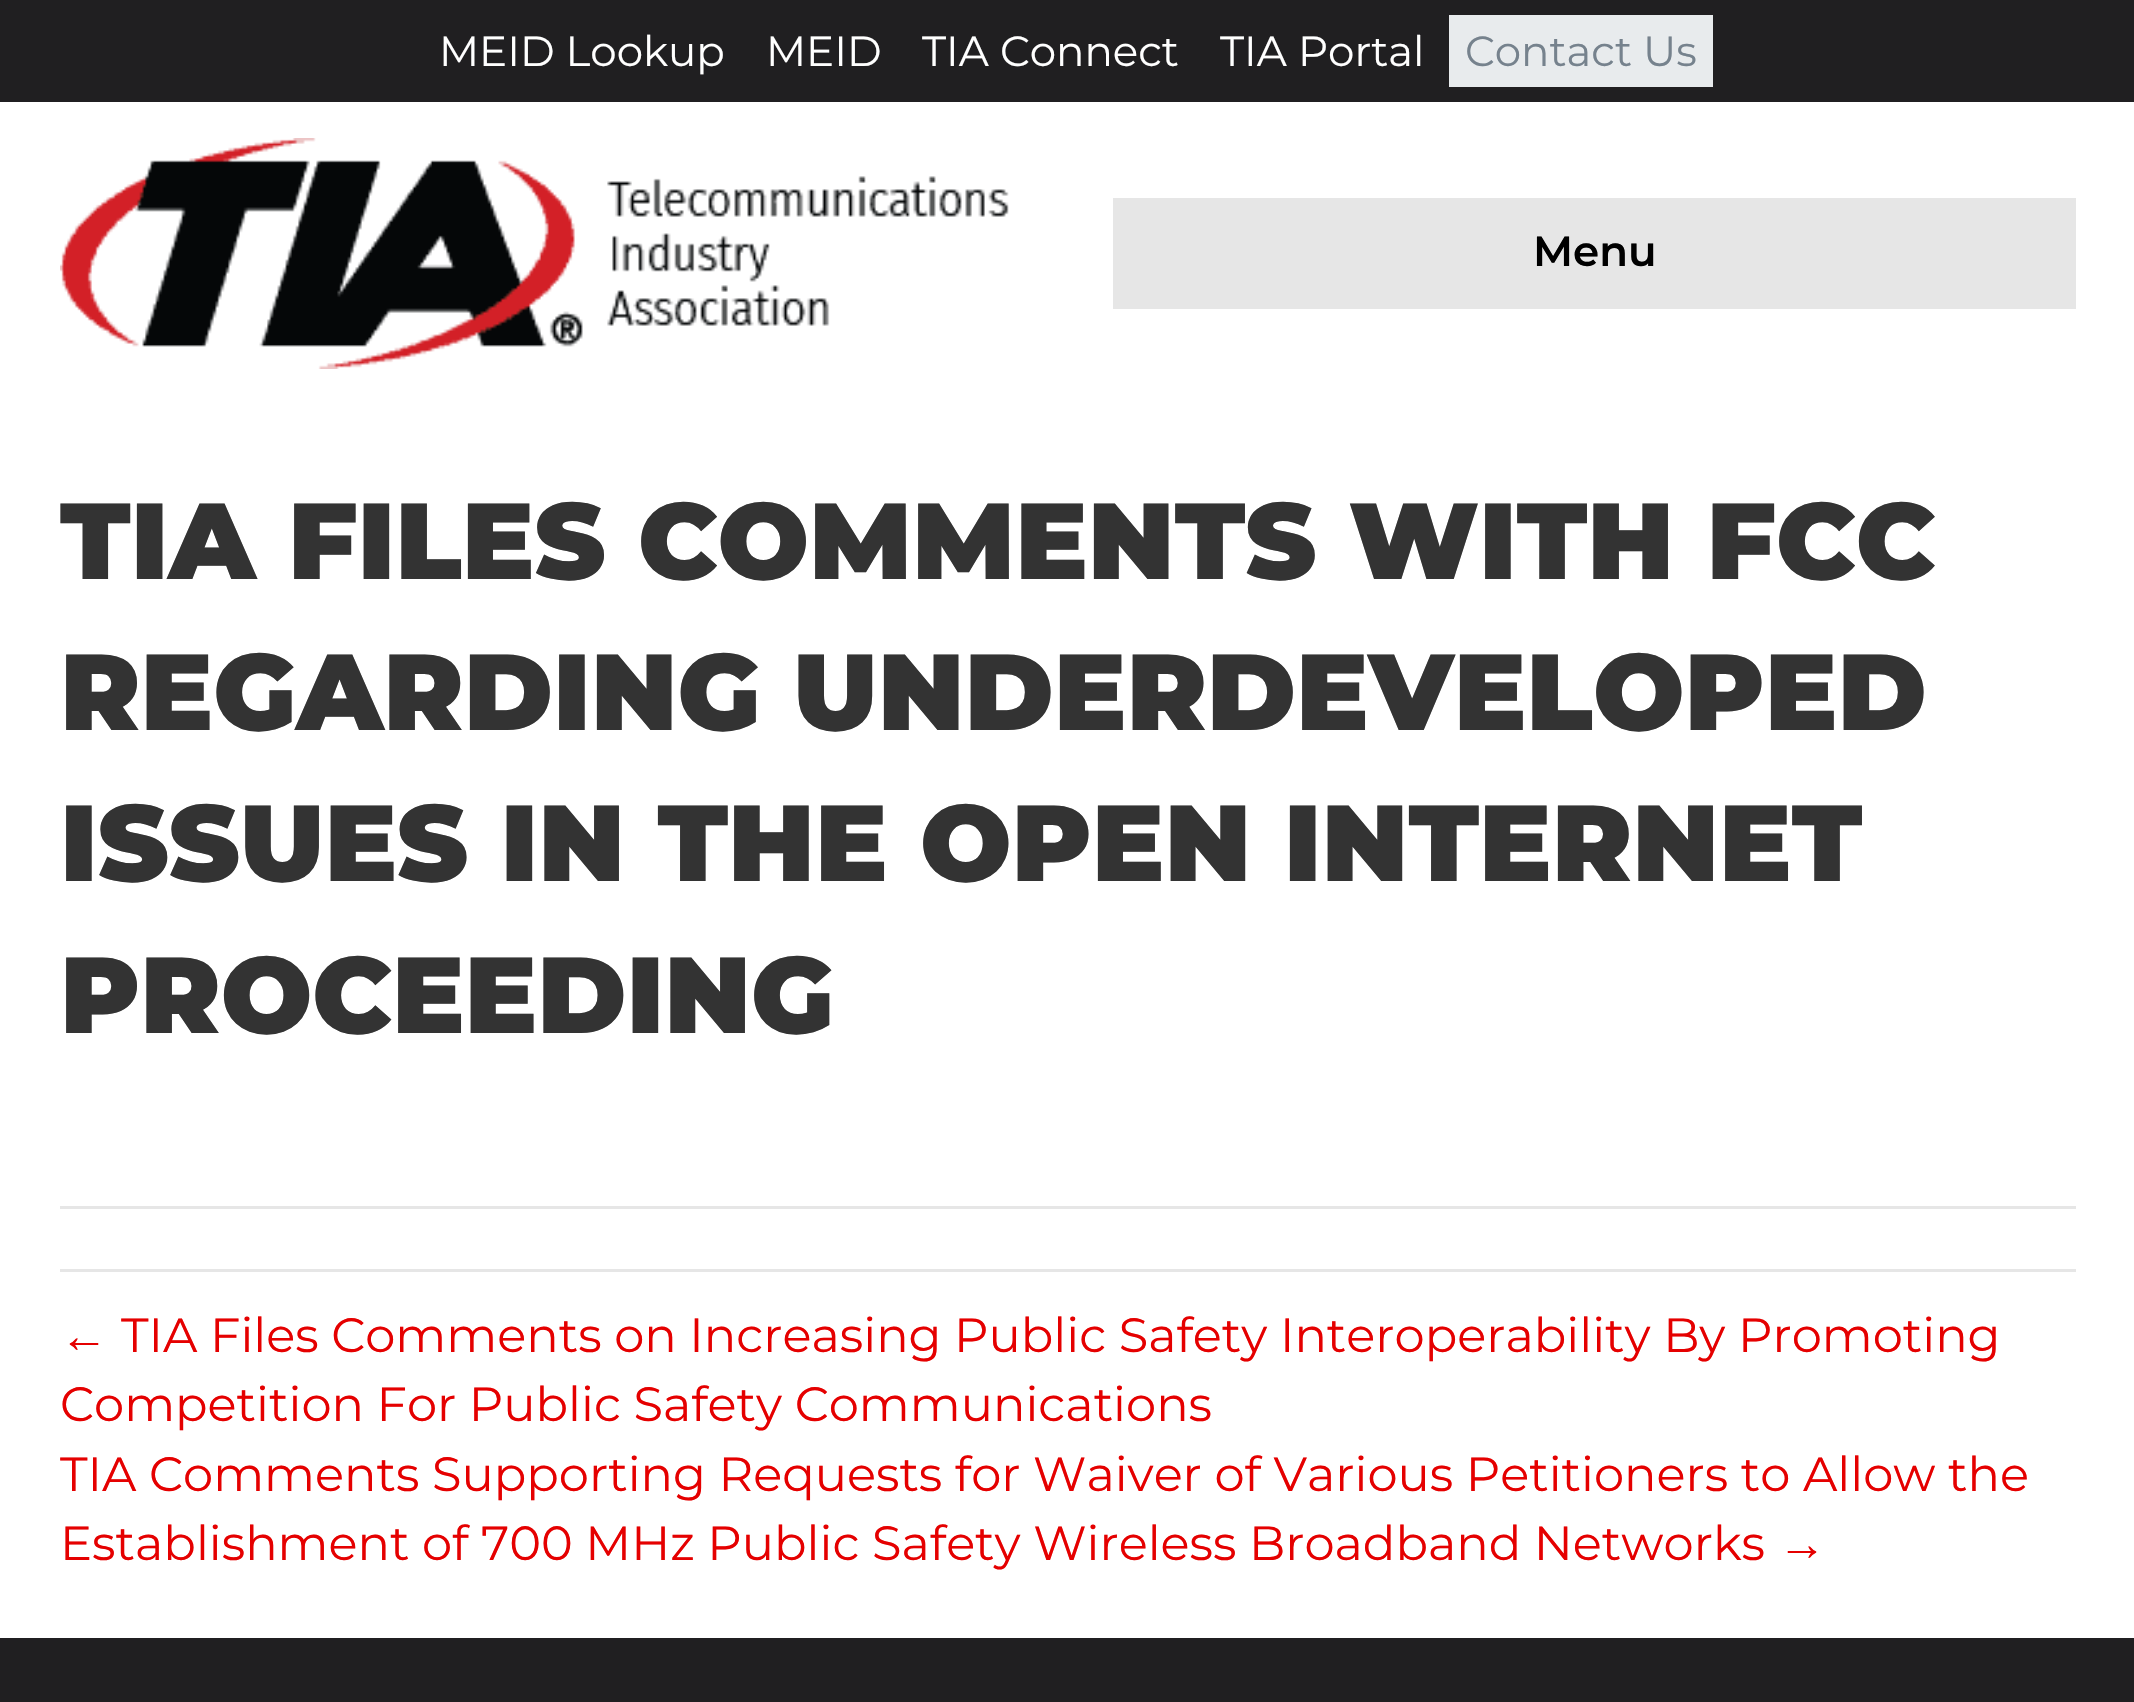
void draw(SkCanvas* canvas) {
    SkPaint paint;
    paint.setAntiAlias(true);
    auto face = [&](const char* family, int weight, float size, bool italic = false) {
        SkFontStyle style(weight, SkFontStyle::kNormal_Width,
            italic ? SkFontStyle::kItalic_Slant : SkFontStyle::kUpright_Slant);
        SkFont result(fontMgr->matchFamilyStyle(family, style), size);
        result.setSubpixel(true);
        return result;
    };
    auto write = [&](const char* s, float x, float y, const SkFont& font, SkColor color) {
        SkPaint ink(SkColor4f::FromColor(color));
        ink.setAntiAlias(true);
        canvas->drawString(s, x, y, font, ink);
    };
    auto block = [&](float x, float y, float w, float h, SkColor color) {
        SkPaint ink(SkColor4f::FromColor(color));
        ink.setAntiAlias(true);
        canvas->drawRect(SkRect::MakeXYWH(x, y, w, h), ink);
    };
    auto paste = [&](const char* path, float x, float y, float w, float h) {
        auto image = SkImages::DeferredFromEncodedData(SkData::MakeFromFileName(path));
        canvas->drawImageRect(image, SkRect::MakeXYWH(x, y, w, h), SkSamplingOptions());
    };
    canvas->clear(SK_ColorWHITE);
    block(0, 0, 2134, 102, SkColorSetRGB(32, 31, 33));
    auto kFont1 = face("Montserrat", 400, 42);
    write("MEID Lookup", 439, 66, kFont1, SK_ColorWHITE);
    write("MEID", 766, 66, kFont1, SK_ColorWHITE);
    write("TIA Connect", 922, 66, kFont1, SK_ColorWHITE);
    write("TIA Portal", 1220, 66, kFont1, SK_ColorWHITE);
    block(1449, 15, 264, 72, SkColorSetRGB(232, 235, 237));
    write("Contact Us", 1465, 66, kFont1, SkColorSetRGB(118, 130, 141));
    paste("pic1.png", 60, 138, 949, 231);
    block(1113, 198, 963, 111, SkColorSetRGB(230, 230, 230));
    auto kFont2 = face("Montserrat", 600, 42);
    write("Menu", 1533, 266, kFont2, SK_ColorBLACK);
    auto kFont3 = face("Montserrat", 900, 108);
    write("TIA FILES COMMENTS WITH FCC", 60, 579, kFont3, SkColorSetRGB(51, 51, 51));
    write("REGARDING UNDERDEVELOPED", 60, 730, kFont3, SkColorSetRGB(51, 51, 51));
    write("ISSUES IN THE OPEN INTERNET", 60, 881, kFont3, SkColorSetRGB(51, 51, 51));
    write("PROCEEDING", 60, 1033, kFont3, SkColorSetRGB(51, 51, 51));
    block(60, 1206, 2016, 3, SkColorSetRGB(230, 230, 230));
    block(60, 1269, 2016, 3, SkColorSetRGB(230, 230, 230));
    auto kFont4 = face("Liberation Sans", 400, 48);
    write("←", 60, 1352, kFont4, SkColorSetRGB(229, 0, 0));
    auto kFont5 = face("Montserrat", 400, 48);
    write("TIA Files Comments on Increasing Public Safety Interoperability By Promoting", 121, 1352, kFont5, SkColorSetRGB(229, 0, 0));
    write("Competition For Public Safety Communications", 60, 1421, kFont5, SkColorSetRGB(229, 0, 0));
    write("TIA Comments Supporting Requests for Waiver of Various Petitioners to Allow the", 60, 1491, kFont5, SkColorSetRGB(229, 0, 0));
    write("Establishment of 700 MHz Public Safety Wireless Broadband Networks", 60, 1560, kFont5, SkColorSetRGB(229, 0, 0));
    write("→", 1778, 1560, kFont4, SkColorSetRGB(229, 0, 0));
    block(0, 1638, 2134, 64, SkColorSetRGB(32, 31, 33));
}
